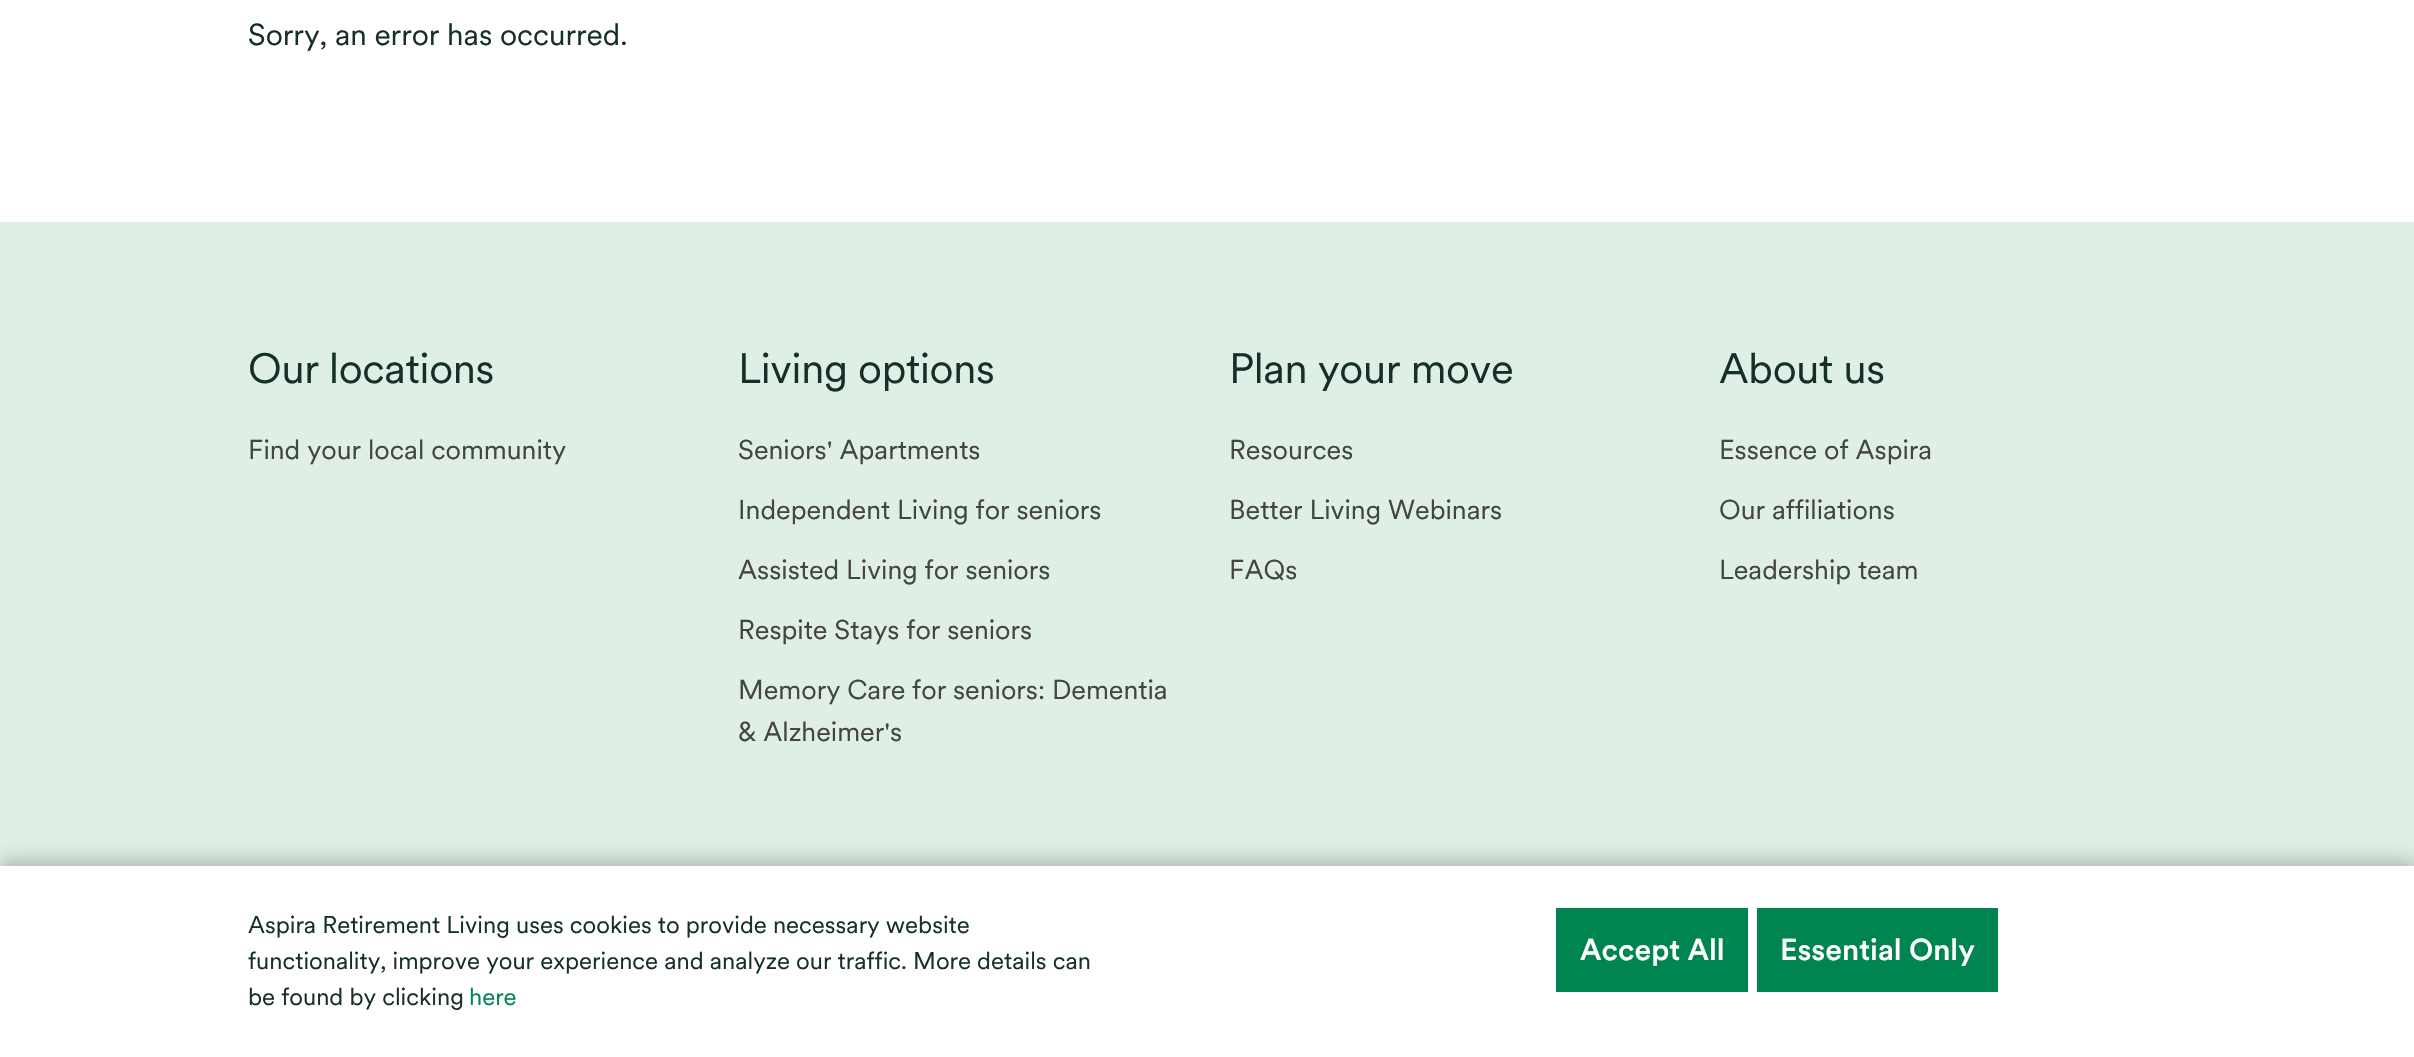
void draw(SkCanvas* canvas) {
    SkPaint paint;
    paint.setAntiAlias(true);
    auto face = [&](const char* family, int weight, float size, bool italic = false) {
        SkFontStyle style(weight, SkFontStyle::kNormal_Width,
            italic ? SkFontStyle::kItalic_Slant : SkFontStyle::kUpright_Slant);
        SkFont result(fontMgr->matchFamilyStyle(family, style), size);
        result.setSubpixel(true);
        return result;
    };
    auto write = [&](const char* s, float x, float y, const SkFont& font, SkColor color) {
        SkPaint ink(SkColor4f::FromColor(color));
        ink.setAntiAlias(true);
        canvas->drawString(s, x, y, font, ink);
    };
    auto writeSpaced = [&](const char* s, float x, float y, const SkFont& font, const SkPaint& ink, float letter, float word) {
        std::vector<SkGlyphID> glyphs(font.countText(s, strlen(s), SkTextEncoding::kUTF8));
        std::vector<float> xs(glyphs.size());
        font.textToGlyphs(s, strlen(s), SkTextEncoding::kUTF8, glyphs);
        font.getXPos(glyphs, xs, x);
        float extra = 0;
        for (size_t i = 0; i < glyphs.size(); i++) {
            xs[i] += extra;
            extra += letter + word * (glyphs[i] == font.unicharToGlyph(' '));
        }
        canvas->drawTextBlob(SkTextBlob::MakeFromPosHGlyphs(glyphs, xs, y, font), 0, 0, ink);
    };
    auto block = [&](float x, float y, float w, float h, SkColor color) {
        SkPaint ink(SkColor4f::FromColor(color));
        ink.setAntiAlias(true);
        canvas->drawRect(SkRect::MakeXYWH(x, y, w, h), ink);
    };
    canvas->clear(SK_ColorWHITE);
    auto kFont1 = face("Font", 400, 30);
    write("Sorry, an error has occurred.", 248, 45, kFont1, SkColorSetRGB(22, 48, 41));
    block(0, 222, 2414, 644, SkColorSetRGB(223, 239, 229));
    auto kFont2 = face("Font", 400, 42);
    paint.setColor(SkColorSetRGB(22, 48, 41));
    writeSpaced("Our locations", 248, 383, kFont2, paint, -0.3f, 0);
    auto kFont3 = face("Font", 400, 27);
    write("Find your local community", 248, 459, kFont3, SkColorSetRGB(68, 68, 68));
    writeSpaced("Living options", 738, 383, kFont2, paint, -0.3f, 0);
    write("Seniors' Apartments", 738, 459, kFont3, SkColorSetRGB(68, 68, 68));
    write("Independent Living for seniors", 738, 519, kFont3, SkColorSetRGB(68, 68, 68));
    write("Assisted Living for seniors", 738, 579, kFont3, SkColorSetRGB(68, 68, 68));
    write("Respite Stays for seniors", 738, 639, kFont3, SkColorSetRGB(68, 68, 68));
    write("Memory Care for seniors: Dementia", 738, 699, kFont3, SkColorSetRGB(68, 68, 68));
    write("& Alzheimer's", 738, 741, kFont3, SkColorSetRGB(68, 68, 68));
    writeSpaced("Plan your move", 1229, 383, kFont2, paint, -0.3f, 0);
    write("Resources", 1229, 459, kFont3, SkColorSetRGB(68, 68, 68));
    write("Better Living Webinars", 1229, 519, kFont3, SkColorSetRGB(68, 68, 68));
    write("FAQs", 1229, 579, kFont3, SkColorSetRGB(68, 68, 68));
    writeSpaced("About us", 1719, 383, kFont2, paint, -0.3f, 0);
    write("Essence of Aspira", 1719, 459, kFont3, SkColorSetRGB(68, 68, 68));
    write("Our affiliations", 1719, 519, kFont3, SkColorSetRGB(68, 68, 68));
    write("Leadership team", 1719, 579, kFont3, SkColorSetRGB(68, 68, 68));
    paint.setColor(SkColorSetARGB(61, 0, 0, 0));
    paint.setMaskFilter(SkMaskFilter::MakeBlur(kNormal_SkBlurStyle, 9));
    canvas->drawRect(SkRect::MakeXYWH(0, 861, 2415, 192), paint);
    paint.setMaskFilter(nullptr);
    block(0, 866, 2414, 191, SK_ColorWHITE);
    auto kFont4 = face("Font", 400, 24);
    write("Aspira Retirement Living uses cookies to provide necessary website", 248, 933, kFont4, SkColorSetRGB(22, 48, 41));
    write("functionality, improve your experience and analyze our traffic. More details can", 248, 969, kFont4, SkColorSetRGB(22, 48, 41));
    write("be found by clicking", 248, 1005, kFont4, SkColorSetRGB(22, 48, 41));
    write("here", 469, 1005, kFont4, SkColorSetRGB(0, 133, 80));
    block(1556, 908, 192, 84, SkColorSetRGB(0, 133, 80));
    auto kFont5 = face("Font", 500, 30);
    write("Accept All", 1580, 960, kFont5, SK_ColorWHITE);
    block(1757, 908, 241, 84, SkColorSetRGB(0, 133, 80));
    write("Essential Only", 1780, 960, kFont5, SK_ColorWHITE);
}
